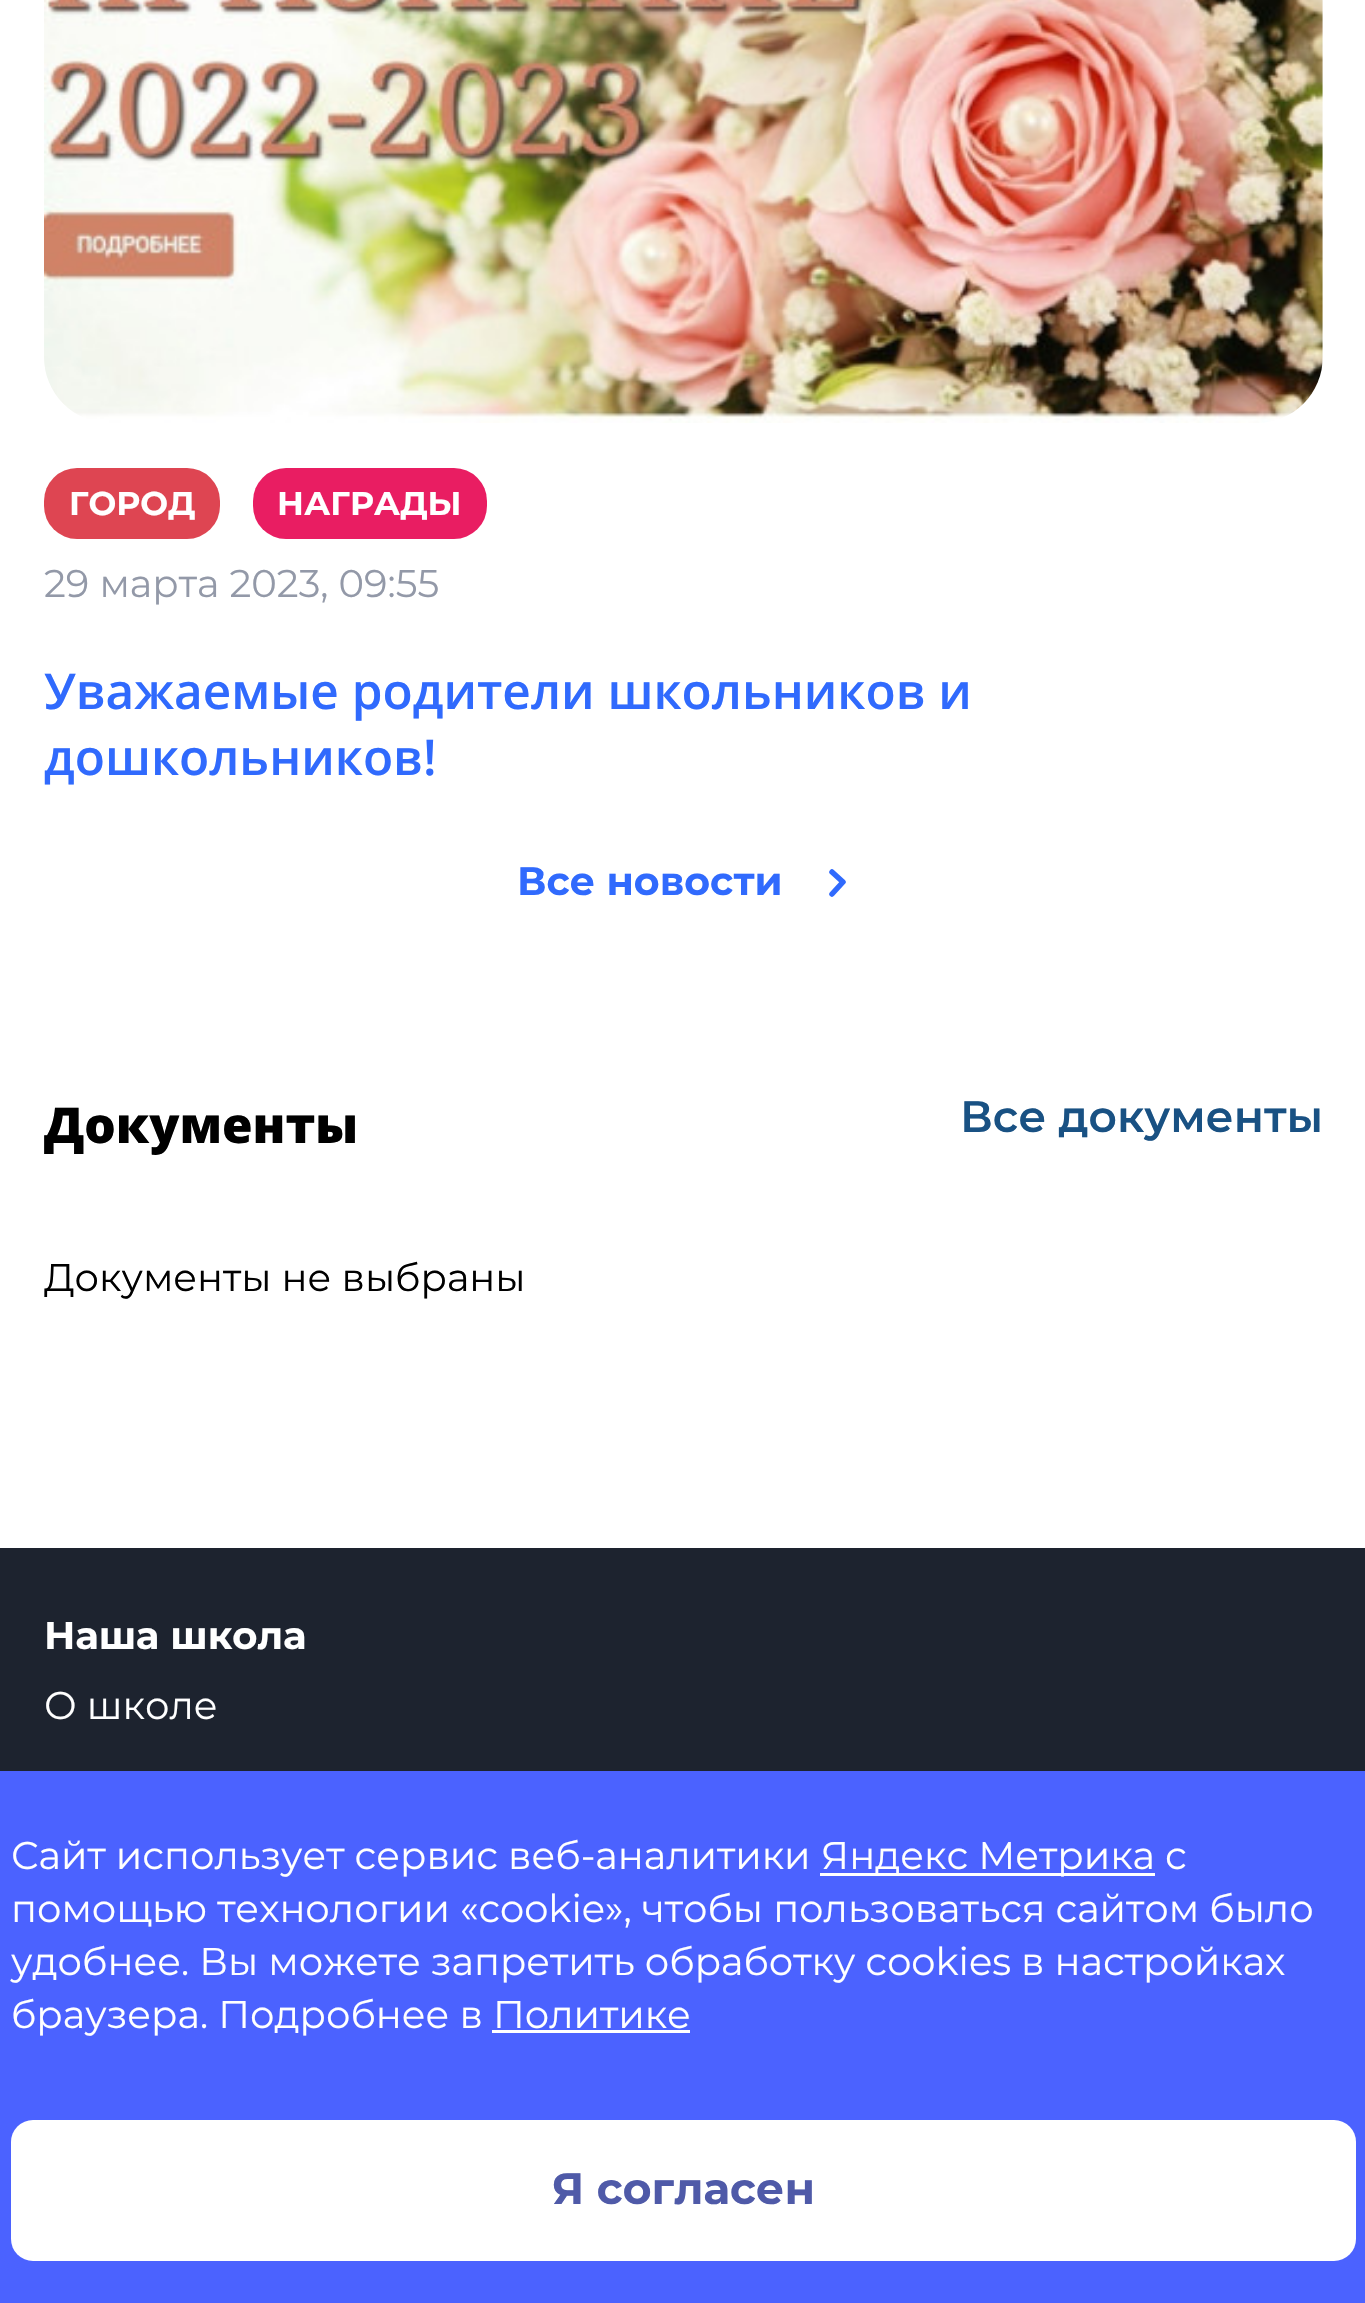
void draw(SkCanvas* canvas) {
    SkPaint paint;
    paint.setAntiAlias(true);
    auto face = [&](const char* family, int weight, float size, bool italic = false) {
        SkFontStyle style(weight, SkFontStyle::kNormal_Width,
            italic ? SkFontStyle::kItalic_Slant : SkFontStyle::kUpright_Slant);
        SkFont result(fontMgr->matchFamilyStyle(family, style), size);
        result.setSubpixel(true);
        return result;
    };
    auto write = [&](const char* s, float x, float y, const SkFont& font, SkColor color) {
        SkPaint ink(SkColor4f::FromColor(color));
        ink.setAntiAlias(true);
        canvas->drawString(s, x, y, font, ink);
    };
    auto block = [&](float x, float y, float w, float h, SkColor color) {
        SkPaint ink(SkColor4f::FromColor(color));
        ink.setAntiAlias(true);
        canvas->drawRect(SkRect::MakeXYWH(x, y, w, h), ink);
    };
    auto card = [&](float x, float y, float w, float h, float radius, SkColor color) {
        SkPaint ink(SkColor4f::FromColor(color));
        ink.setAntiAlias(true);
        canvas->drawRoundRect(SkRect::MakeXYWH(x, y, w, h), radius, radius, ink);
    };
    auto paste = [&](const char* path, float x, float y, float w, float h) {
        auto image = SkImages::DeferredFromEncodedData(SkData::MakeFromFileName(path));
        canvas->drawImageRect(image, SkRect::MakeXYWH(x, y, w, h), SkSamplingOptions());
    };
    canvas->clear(SK_ColorWHITE);
    paste("pic1.png", 44, 0, 1279, 423);
    card(44, 468, 176, 71, 33, SkColorSetRGB(222, 69, 82));
    auto kFont1 = face("Montserrat", 700, 33);
    write("ГОРОД", 69, 515, kFont1, SK_ColorWHITE);
    card(253, 468, 234, 71, 33, SkColorSetRGB(233, 29, 98));
    write("НАГРАДЫ", 277, 515, kFont1, SK_ColorWHITE);
    auto kFont2 = face("Montserrat", 400, 38.5f);
    write("29 марта 2023, 09:55", 44, 597, kFont2, SkColorSetRGB(147, 153, 168));
    auto kFont3 = face("Open Sans", 600, 49.5f);
    write("Уважаемые родители школьников и", 44, 709, kFont3, SkColorSetRGB(48, 106, 253));
    write("дошкольников!", 44, 775, kFont3, SkColorSetRGB(48, 106, 253));
    auto kFont4 = face("Montserrat", 700, 39.5f);
    write("Все новости", 517, 895, kFont4, SkColorSetRGB(48, 106, 253));
    paint.setStyle(SkPaint::kStroke_Style);
    paint.setStrokeWidth(5.5f);
    paint.setStrokeCap(SkPaint::kRound_Cap);
    paint.setStrokeJoin(SkPaint::kRound_Join);
    paint.setColor(SkColorSetRGB(48, 106, 253));
    canvas->drawPath(SkPathBuilder().moveTo(832, 872).lineTo(843, 882).lineTo(832, 894).detach(), paint);
    auto kFont5 = face("Open Sans", 800, 49.5f);
    write("Документы", 44, 1143, kFont5, SK_ColorBLACK);
    auto kFont6 = face("Montserrat", 600, 44);
    write("Все документы", 960, 1132, kFont6, SkColorSetRGB(25, 81, 131));
    write("Документы не выбраны", 44, 1291, kFont2, SK_ColorBLACK);
    block(0, 1548, 1365, 223, SkColorSetRGB(29, 35, 47));
    auto kFont7 = face("Montserrat", 700, 38.5f);
    write("Наша школа", 44, 1649, kFont7, SK_ColorWHITE);
    write("О школе", 44, 1719, kFont2, SK_ColorWHITE);
    block(0, 1771, 1365, 532, SkColorSetRGB(75, 98, 255));
    write("Сайт использует сервис веб-аналитики", 11, 1869, kFont2, SK_ColorWHITE);
    block(820, 1873, 335, 3, SK_ColorWHITE);
    write("Яндекс Метрика с", 821, 1869, kFont2, SK_ColorWHITE);
    write("помощью технологии «cookie», чтобы пользоваться сайтом было", 11, 1922, kFont2, SK_ColorWHITE);
    write("удобнее. Вы можете запретить обработку cookies в настройках", 11, 1975, kFont2, SK_ColorWHITE);
    write("браузера. Подробнее в Политике", 11, 2028, kFont2, SK_ColorWHITE);
    block(492, 2030, 198, 3, SK_ColorWHITE);
    card(11, 2120, 1345, 141, 22, SK_ColorWHITE);
    auto kFont8 = face("Montserrat", 700, 44);
    write("Я согласен", 552, 2204, kFont8, SkColorSetRGB(79, 90, 168));
}
